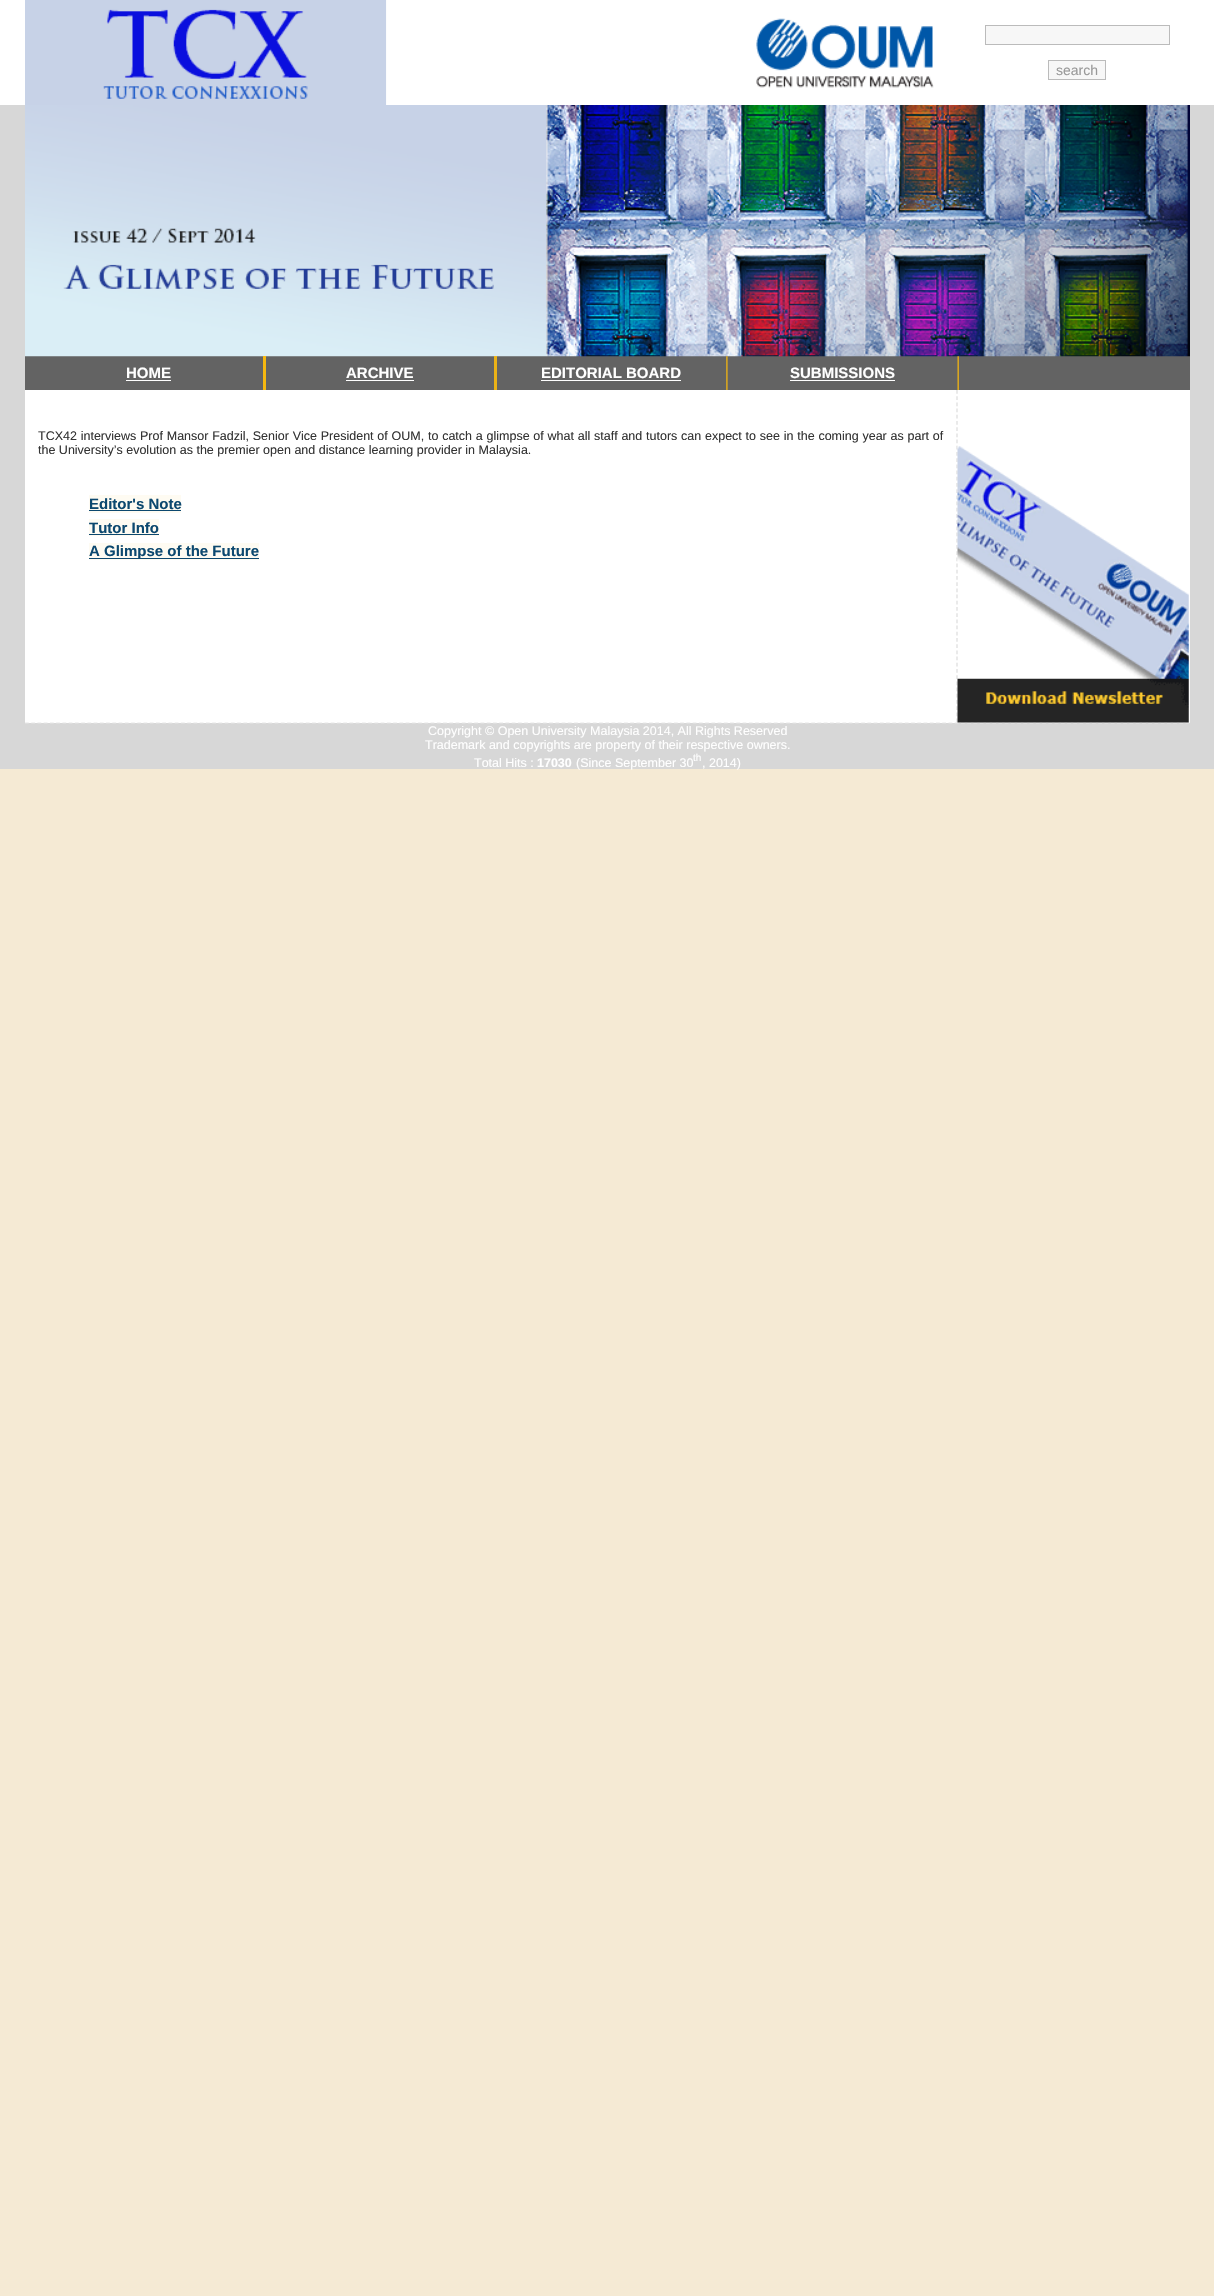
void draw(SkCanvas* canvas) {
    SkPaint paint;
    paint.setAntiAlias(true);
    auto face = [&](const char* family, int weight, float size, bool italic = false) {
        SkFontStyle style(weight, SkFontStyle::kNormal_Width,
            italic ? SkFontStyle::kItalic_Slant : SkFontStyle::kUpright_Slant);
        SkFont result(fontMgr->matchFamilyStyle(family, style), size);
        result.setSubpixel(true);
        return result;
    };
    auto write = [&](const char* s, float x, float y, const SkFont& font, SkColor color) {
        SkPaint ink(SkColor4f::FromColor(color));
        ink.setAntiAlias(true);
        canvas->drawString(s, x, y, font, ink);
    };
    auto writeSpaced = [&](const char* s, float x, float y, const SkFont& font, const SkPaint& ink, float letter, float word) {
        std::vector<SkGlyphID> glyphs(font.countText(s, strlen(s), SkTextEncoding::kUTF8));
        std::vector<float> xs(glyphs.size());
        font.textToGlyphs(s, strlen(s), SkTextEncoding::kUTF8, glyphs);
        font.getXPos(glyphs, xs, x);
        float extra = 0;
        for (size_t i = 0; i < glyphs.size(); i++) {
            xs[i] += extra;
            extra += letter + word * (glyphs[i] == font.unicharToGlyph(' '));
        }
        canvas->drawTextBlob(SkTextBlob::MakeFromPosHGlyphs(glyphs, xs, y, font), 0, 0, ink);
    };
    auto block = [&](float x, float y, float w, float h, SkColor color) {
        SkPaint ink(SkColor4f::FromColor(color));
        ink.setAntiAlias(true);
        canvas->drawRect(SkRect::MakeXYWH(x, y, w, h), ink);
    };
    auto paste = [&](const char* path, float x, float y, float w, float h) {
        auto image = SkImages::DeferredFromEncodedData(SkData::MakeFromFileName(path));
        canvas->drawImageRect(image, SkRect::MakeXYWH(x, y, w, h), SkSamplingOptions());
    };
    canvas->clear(SkColorSetRGB(245, 234, 212));
    block(0, 0, 1214, 105, SK_ColorWHITE);
    paste("pic1.png", 25, 0, 361, 105);
    block(386, 0, 1, 105, SkColorSetRGB(251, 252, 253));
    paste("pic2.png", 756, 18, 178, 70);
    paint.setColor(SkColorSetRGB(247, 247, 247));
    canvas->drawRect(SkRect::MakeXYWH(985.5f, 25.5f, 184, 19), paint);
    paint.setStyle(SkPaint::kStroke_Style);
    paint.setStrokeWidth(1);
    paint.setColor(SkColorSetRGB(187, 187, 187));
    canvas->drawRect(SkRect::MakeXYWH(985.5f, 25.5f, 184, 19), paint);
    paint.setStyle(SkPaint::kFill_Style);
    paint.setColor(SkColorSetRGB(247, 247, 247));
    canvas->drawRect(SkRect::MakeXYWH(1048.5f, 60.5f, 57, 19), paint);
    paint.setStyle(SkPaint::kStroke_Style);
    paint.setColor(SkColorSetRGB(187, 187, 187));
    canvas->drawRect(SkRect::MakeXYWH(1048.5f, 60.5f, 57, 19), paint);
    auto kFont1 = face("Liberation Sans", 400, 14);
    write("search", 1056, 75, kFont1, SkColorSetRGB(153, 153, 153));
    block(0, 105, 1214, 664, SkColorSetRGB(215, 215, 215));
    block(25, 356, 1165, 34, SkColorSetRGB(99, 99, 99));
    paste("pic3.png", 25, 105, 1165, 252);
    auto kFont2 = face("Liberation Sans", 700, 15);
    write("HOME", 126, 378, kFont2, SK_ColorWHITE);
    block(126, 380, 45, 1, SK_ColorWHITE);
    block(263, 356, 3, 34, SkColorSetARGB(240, 255, 189, 11));
    write("ARCHIVE", 346, 378, kFont2, SK_ColorWHITE);
    block(346, 380, 68, 1, SK_ColorWHITE);
    block(494, 356, 3, 34, SkColorSetARGB(222, 255, 189, 10));
    write("EDITORIAL BOARD", 541, 378, kFont2, SK_ColorWHITE);
    block(541, 380, 140, 1, SK_ColorWHITE);
    paste("pic4.png", 726, 356, 2, 34);
    write("SUBMISSIONS", 790, 378, kFont2, SK_ColorWHITE);
    block(790, 380, 105, 1, SK_ColorWHITE);
    paste("pic5.png", 957, 356, 2, 34);
    block(25, 390, 933, 333, SK_ColorWHITE);
    paint.setStrokeWidth(1.2f);
    paint.setColor(SkColorSetRGB(221, 221, 221));
    paint.setPathEffect(SkDashPathEffect::Make({{3.75f, 2.45f}}, 0));
    canvas->drawPath(SkPathBuilder().moveTo(957, 390).lineTo(957, 722.5f).detach(), paint);
    paint.setPathEffect(nullptr);
    auto kFont3 = face("Liberation Sans", 400, 12.5f);
    paint.setStyle(SkPaint::kFill_Style);
    paint.setColor(SkColorSetRGB(51, 51, 51));
    writeSpaced("TCX42 interviews Prof Mansor Fadzil, Senior Vice President of OUM, to catch a glimpse of what all staff and tutors can expect to see in the coming year as part of", 38, 440, kFont3, paint, 0, 0.3f);
    write("the University’s evolution as the premier open and distance learning provider in Malaysia.", 38, 454, kFont3, SkColorSetRGB(51, 51, 51));
    block(89, 495, 92, 18, SkColorSetRGB(254, 251, 242));
    write("Editor's Note", 89, 509, kFont2, SkColorSetRGB(12, 72, 111));
    block(89, 510, 92, 1, SkColorSetRGB(12, 72, 111));
    block(89, 519, 70, 17, SkColorSetRGB(254, 251, 242));
    write("Tutor Info", 89, 533, kFont2, SkColorSetRGB(12, 72, 111));
    block(89, 534, 70, 1, SkColorSetRGB(12, 72, 111));
    block(89, 543, 170, 17, SkColorSetRGB(254, 251, 242));
    block(89, 558, 170, 1, SkColorSetRGB(12, 72, 111));
    write("A Glimpse of the Future", 89, 556, kFont2, SkColorSetRGB(12, 72, 111));
    block(958, 390, 232, 333, SK_ColorWHITE);
    paint.setStyle(SkPaint::kStroke_Style);
    paint.setColor(SkColorSetRGB(232, 232, 232));
    paint.setPathEffect(SkDashPathEffect::Make({{3.75f, 2.49f}}, 0));
    canvas->drawPath(SkPathBuilder().moveTo(25, 723).lineTo(1190, 723).detach(), paint);
    paint.setPathEffect(nullptr);
    paste("pic6.png", 957, 446, 232, 277);
    write("Copyright © Open University Malaysia 2014, All Rights Reserved", 428, 735, kFont3, SK_ColorWHITE);
    write("Trademark and copyrights are property of their respective owners.", 425, 749, kFont3, SK_ColorWHITE);
    write("Total Hits :", 474, 767, kFont3, SK_ColorWHITE);
    auto kFont4 = face("Liberation Sans", 700, 12.5f);
    write("17030", 537, 767, kFont4, SK_ColorWHITE);
    write("(Since September 30", 576, 767, kFont3, SK_ColorWHITE);
    auto kFont5 = face("Liberation Sans", 400, 10);
    write("th", 693, 761, kFont5, SK_ColorWHITE);
    write(", 2014)", 702, 767, kFont3, SK_ColorWHITE);
}
